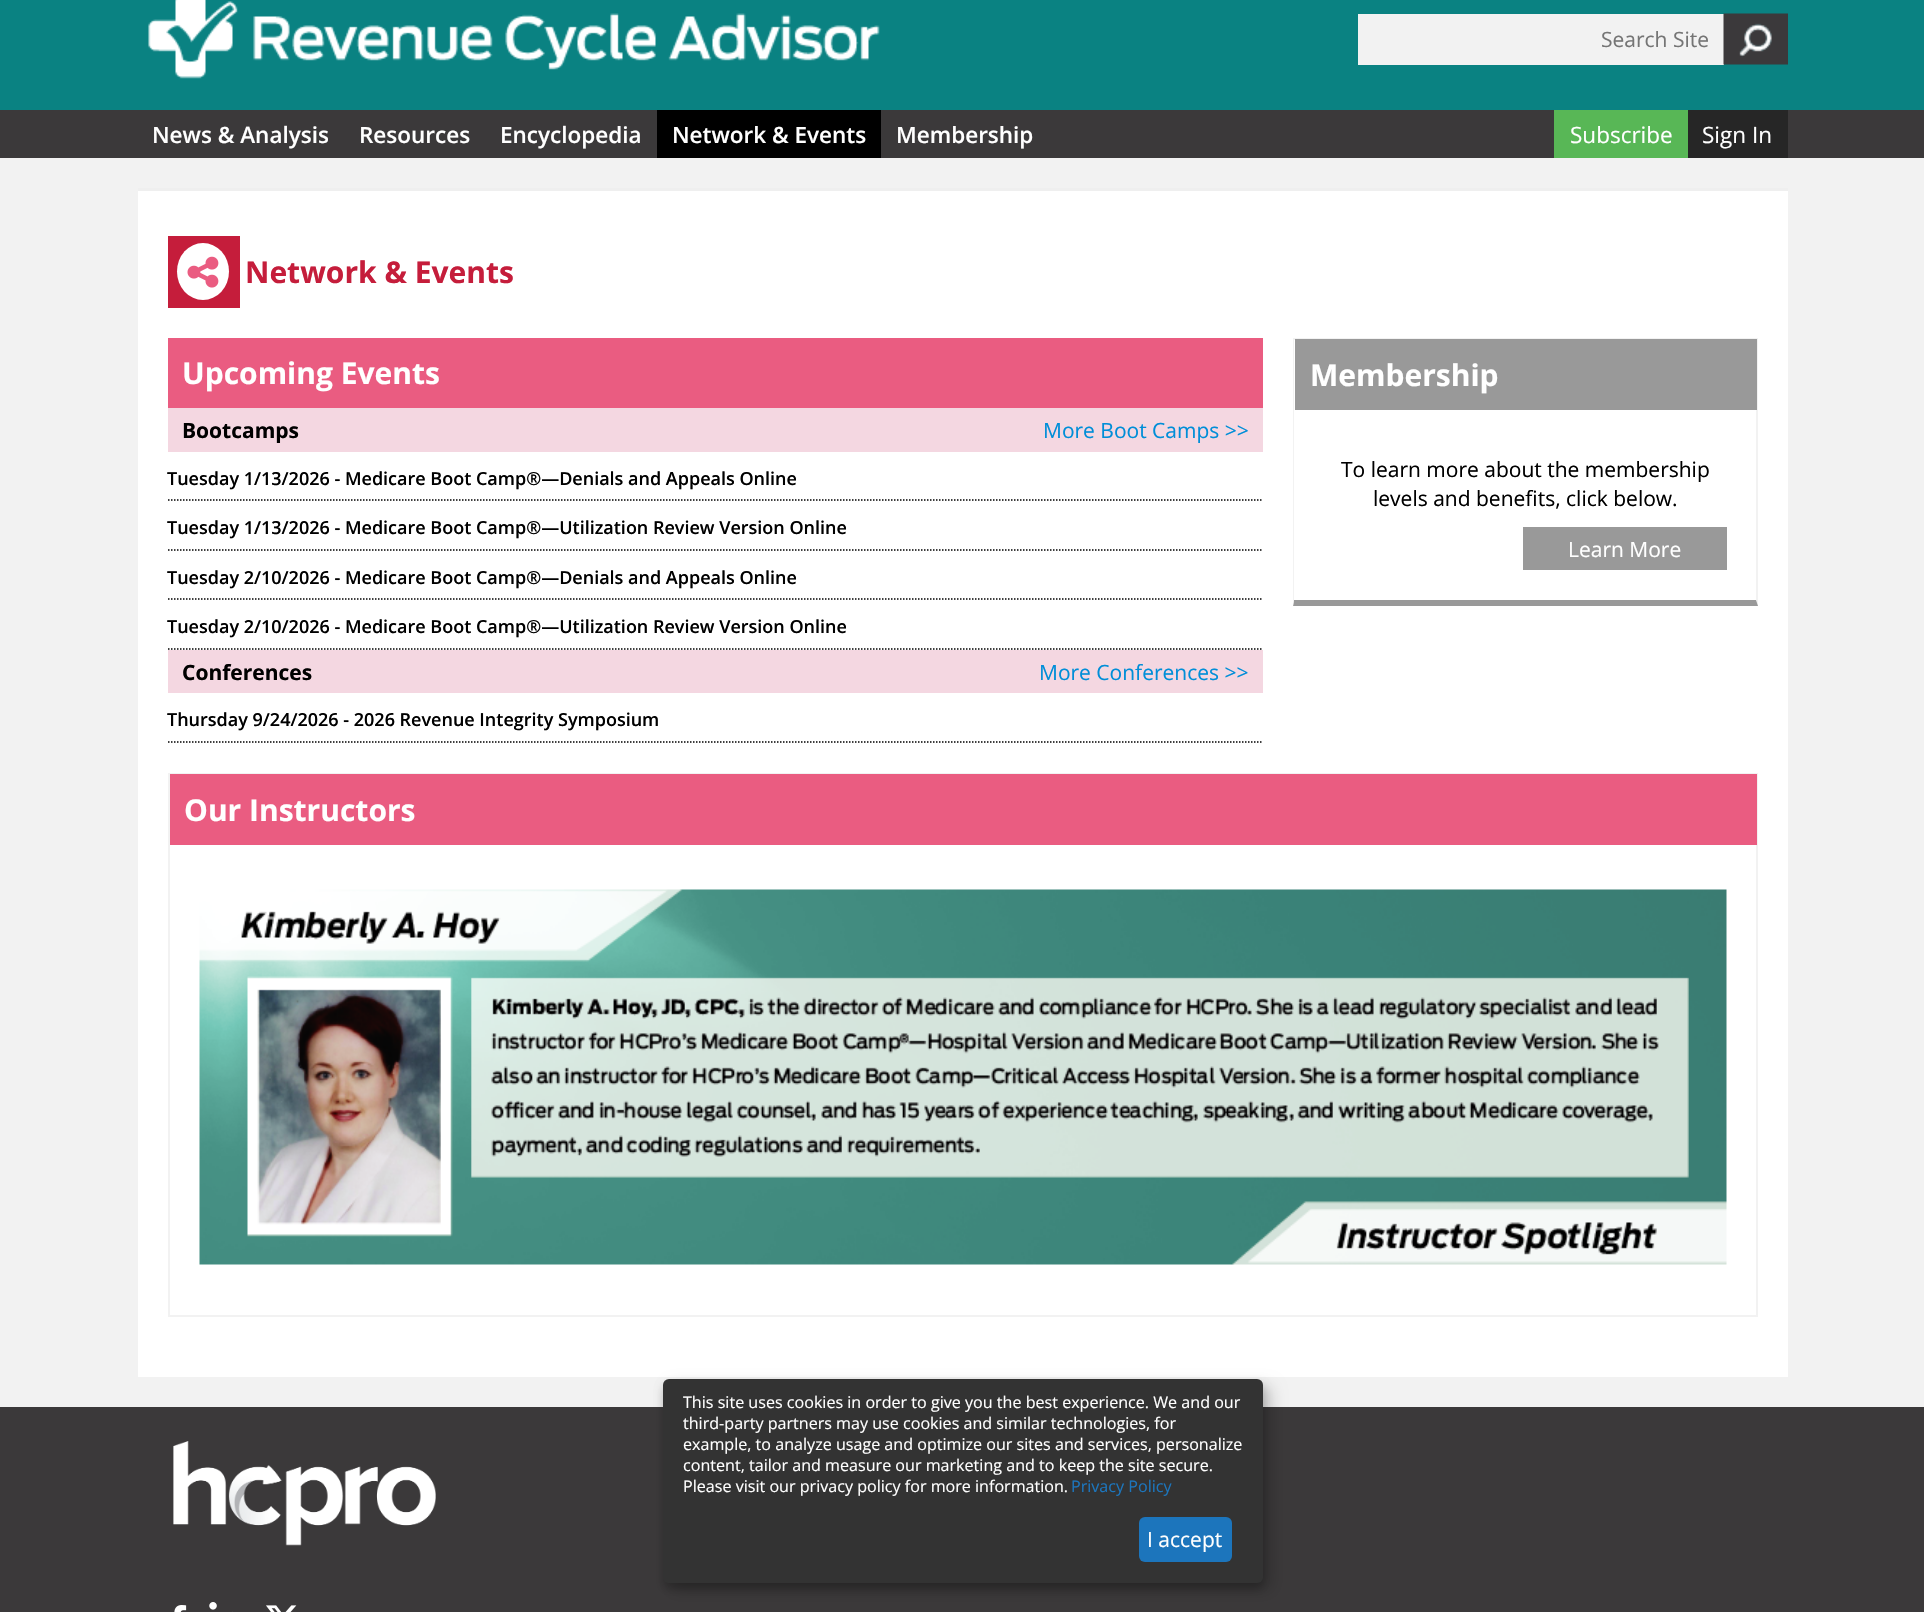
void draw(SkCanvas* canvas) {
    SkPaint paint;
    paint.setAntiAlias(true);
    auto face = [&](const char* family, int weight, float size, bool italic = false) {
        SkFontStyle style(weight, SkFontStyle::kNormal_Width,
            italic ? SkFontStyle::kItalic_Slant : SkFontStyle::kUpright_Slant);
        SkFont result(fontMgr->matchFamilyStyle(family, style), size);
        result.setSubpixel(true);
        return result;
    };
    auto write = [&](const char* s, float x, float y, const SkFont& font, SkColor color) {
        SkPaint ink(SkColor4f::FromColor(color));
        ink.setAntiAlias(true);
        canvas->drawString(s, x, y, font, ink);
    };
    auto block = [&](float x, float y, float w, float h, SkColor color) {
        SkPaint ink(SkColor4f::FromColor(color));
        ink.setAntiAlias(true);
        canvas->drawRect(SkRect::MakeXYWH(x, y, w, h), ink);
    };
    auto card = [&](float x, float y, float w, float h, float radius, SkColor color) {
        SkPaint ink(SkColor4f::FromColor(color));
        ink.setAntiAlias(true);
        canvas->drawRoundRect(SkRect::MakeXYWH(x, y, w, h), radius, radius, ink);
    };
    auto paste = [&](const char* path, float x, float y, float w, float h) {
        auto image = SkImages::DeferredFromEncodedData(SkData::MakeFromFileName(path));
        canvas->drawImageRect(image, SkRect::MakeXYWH(x, y, w, h), SkSamplingOptions());
    };
    canvas->clear(SkColorSetRGB(242, 242, 242));
    block(0, 0, 1924, 110, SkColorSetRGB(10, 130, 130));
    paste("pic1.png", 148, 0, 732, 79);
    block(1358, 14, 366, 51, SkColorSetRGB(242, 242, 242));
    auto kFont1 = face("Open Sans", 400, 21);
    write("Search Site", 1601, 47, kFont1, SkColorSetRGB(117, 117, 117));
    paste("pic2.png", 1723, 13, 65, 52);
    block(0, 110, 1924, 48, SkColorSetRGB(59, 57, 58));
    auto kFont2 = face("Open Sans", 600, 22.5f);
    write("News & Analysis", 152, 143, kFont2, SK_ColorWHITE);
    write("Resources", 359, 143, kFont2, SK_ColorWHITE);
    write("Encyclopedia", 500, 143, kFont2, SK_ColorWHITE);
    block(657, 110, 224, 48, SK_ColorBLACK);
    write("Network & Events", 672, 143, kFont2, SK_ColorWHITE);
    write("Membership", 896, 143, kFont2, SK_ColorWHITE);
    block(1554, 110, 134, 48, SkColorSetRGB(88, 183, 86));
    auto kFont3 = face("Open Sans", 400, 22.5f);
    write("Subscribe", 1570, 143, kFont3, SK_ColorWHITE);
    block(1688, 110, 100, 48, SkColorSetRGB(38, 38, 38));
    write("Sign In", 1702, 143, kFont3, SK_ColorWHITE);
    block(138, 188, 1650, 3, SkColorSetRGB(239, 239, 239));
    block(138, 191, 1650, 1186, SK_ColorWHITE);
    block(168, 236, 72, 72, SkColorSetRGB(197, 29, 59));
    paint.setColor(SK_ColorWHITE);
    canvas->drawOval(SkRect::MakeXYWH(177, 243, 52, 57), paint);
    paste("pic3.png", 187, 256, 32, 32);
    auto kFont4 = face("Open Sans", 700, 30);
    write("Network & Events", 245, 283, kFont4, SkColorSetRGB(197, 29, 59));
    block(168, 338, 1095, 70, SkColorSetRGB(234, 92, 129));
    write("Upcoming Events", 182, 384, kFont4, SK_ColorWHITE);
    block(168, 408, 1095, 44, SkColorSetRGB(244, 215, 225));
    auto kFont5 = face("Open Sans", 700, 21);
    write("Bootcamps", 182, 438, kFont5, SK_ColorBLACK);
    write("More Boot Camps >>", 1043, 438, kFont1, SkColorSetRGB(0, 142, 216));
    paint.setStyle(SkPaint::kStroke_Style);
    paint.setStrokeWidth(1.5f);
    paint.setColor(SK_ColorBLACK);
    paint.setPathEffect(SkDashPathEffect::Make({{1.5f, 1.5f}}, 0));
    canvas->drawPath(SkPathBuilder().moveTo(168, 500).lineTo(1263, 500).detach(), paint);
    paint.setPathEffect(nullptr);
    auto kFont6 = face("Open Sans", 600, 18);
    write("Tuesday 1/13/2026 - Medicare Boot Camp®—Denials and Appeals Online", 167, 485, kFont6, SK_ColorBLACK);
    paint.setPathEffect(SkDashPathEffect::Make({{1.5f, 1.5f}}, 0));
    canvas->drawPath(SkPathBuilder().moveTo(168, 550).lineTo(1263, 550).detach(), paint);
    paint.setPathEffect(nullptr);
    write("Tuesday 1/13/2026 - Medicare Boot Camp®—Utilization Review Version Online", 167, 534, kFont6, SK_ColorBLACK);
    paint.setPathEffect(SkDashPathEffect::Make({{1.5f, 1.5f}}, 0));
    canvas->drawPath(SkPathBuilder().moveTo(168, 599).lineTo(1263, 599).detach(), paint);
    paint.setPathEffect(nullptr);
    write("Tuesday 2/10/2026 - Medicare Boot Camp®—Denials and Appeals Online", 167, 584, kFont6, SK_ColorBLACK);
    paint.setPathEffect(SkDashPathEffect::Make({{1.5f, 1.5f}}, 0));
    canvas->drawPath(SkPathBuilder().moveTo(168, 649).lineTo(1263, 649).detach(), paint);
    paint.setPathEffect(nullptr);
    write("Tuesday 2/10/2026 - Medicare Boot Camp®—Utilization Review Version Online", 167, 633, kFont6, SK_ColorBLACK);
    block(168, 650, 1095, 43, SkColorSetRGB(244, 215, 225));
    write("Conferences", 182, 680, kFont5, SK_ColorBLACK);
    write("More Conferences >>", 1039, 680, kFont1, SkColorSetRGB(0, 142, 216));
    paint.setPathEffect(SkDashPathEffect::Make({{1.5f, 1.5f}}, 0));
    canvas->drawPath(SkPathBuilder().moveTo(168, 742).lineTo(1263, 742).detach(), paint);
    paint.setPathEffect(nullptr);
    write("Thursday 9/24/2026 - 2026 Revenue Integrity Symposium", 167, 726, kFont6, SK_ColorBLACK);
    block(1293, 338, 465, 2, SkColorSetRGB(242, 242, 242));
    paint.setStyle(SkPaint::kFill_Style);
    paint.setColor(SkColorSetRGB(242, 242, 242));
    canvas->drawPath(SkPathBuilder().moveTo(1758, 338).lineTo(1758, 606).lineTo(1756, 600).lineTo(1756, 339).close().detach(), paint);
    paint.setColor(SkColorSetRGB(153, 153, 153));
    canvas->drawPath(SkPathBuilder().moveTo(1758, 606).lineTo(1293, 606).lineTo(1294, 600).lineTo(1756, 600).close().detach(), paint);
    paint.setColor(SkColorSetRGB(242, 242, 242));
    canvas->drawPath(SkPathBuilder().moveTo(1293, 606).lineTo(1293, 338).lineTo(1294, 339).lineTo(1294, 600).close().detach(), paint);
    block(1295, 339, 462, 71, SkColorSetRGB(153, 153, 153));
    write("Membership", 1310, 386, kFont4, SK_ColorWHITE);
    write("To learn more about the membership", 1341, 477, kFont1, SK_ColorBLACK);
    write("levels and benefits, click below.", 1373, 506, kFont1, SK_ColorBLACK);
    block(1523, 527, 204, 43, SkColorSetRGB(153, 153, 153));
    write("Learn More", 1568, 557, kFont1, SK_ColorWHITE);
    paint.setStyle(SkPaint::kStroke_Style);
    paint.setStrokeWidth(2);
    canvas->drawRect(SkRect::MakeXYWH(169, 774, 1588, 542), paint);
    block(170, 774, 1587, 71, SkColorSetRGB(234, 92, 129));
    write("Our Instructors", 184, 821, kFont4, SK_ColorWHITE);
    paste("pic4.png", 199, 889, 1528, 376);
    block(0, 1407, 1924, 205, SkColorSetRGB(59, 57, 58));
    paste("pic5.png", 173, 1441, 263, 105);
    paste("pic6.png", 174, 1605, 13, 7);
    paste("pic7.png", 209, 1602, 24, 10);
    paste("pic8.png", 266, 1605, 31, 7);
    paint.setStyle(SkPaint::kFill_Style);
    paint.setColor(SkColorSetARGB(48, 0, 0, 0));
    paint.setMaskFilter(SkMaskFilter::MakeBlur(kNormal_SkBlurStyle, 7.5f));
    canvas->drawRoundRect(SkRect::MakeXYWH(671, 1386, 600, 204), 6, 6, paint);
    paint.setMaskFilter(nullptr);
    paint.setColor(SkColorSetARGB(51, 0, 0, 0));
    paint.setMaskFilter(SkMaskFilter::MakeBlur(kNormal_SkBlurStyle, 4.5f));
    canvas->drawRoundRect(SkRect::MakeXYWH(663, 1385, 600, 204), 6, 6, paint);
    paint.setMaskFilter(nullptr);
    card(663, 1379, 600, 204, 6, SkColorSetRGB(51, 51, 51));
    auto kFont7 = face("Open Sans", 400, 16.1f);
    write("This site uses cookies in order to give you the best experience. We and our", 683, 1408, kFont7, SK_ColorWHITE);
    write("third-party partners may use cookies and similar technologies, for", 683, 1429, kFont7, SK_ColorWHITE);
    write("example, to analyze usage and optimize our sites and services, personalize", 683, 1450, kFont7, SK_ColorWHITE);
    write("content, tailor and measure our marketing and to keep the site secure.", 683, 1471, kFont7, SK_ColorWHITE);
    write("Please visit our privacy policy for more information.", 683, 1492, kFont7, SK_ColorWHITE);
    write("Privacy Policy", 1071, 1492, kFont7, SkColorSetRGB(28, 117, 188));
    card(1139, 1517, 93, 45, 6, SkColorSetRGB(28, 117, 188));
    write("I accept", 1147, 1547, kFont1, SK_ColorWHITE);
}
